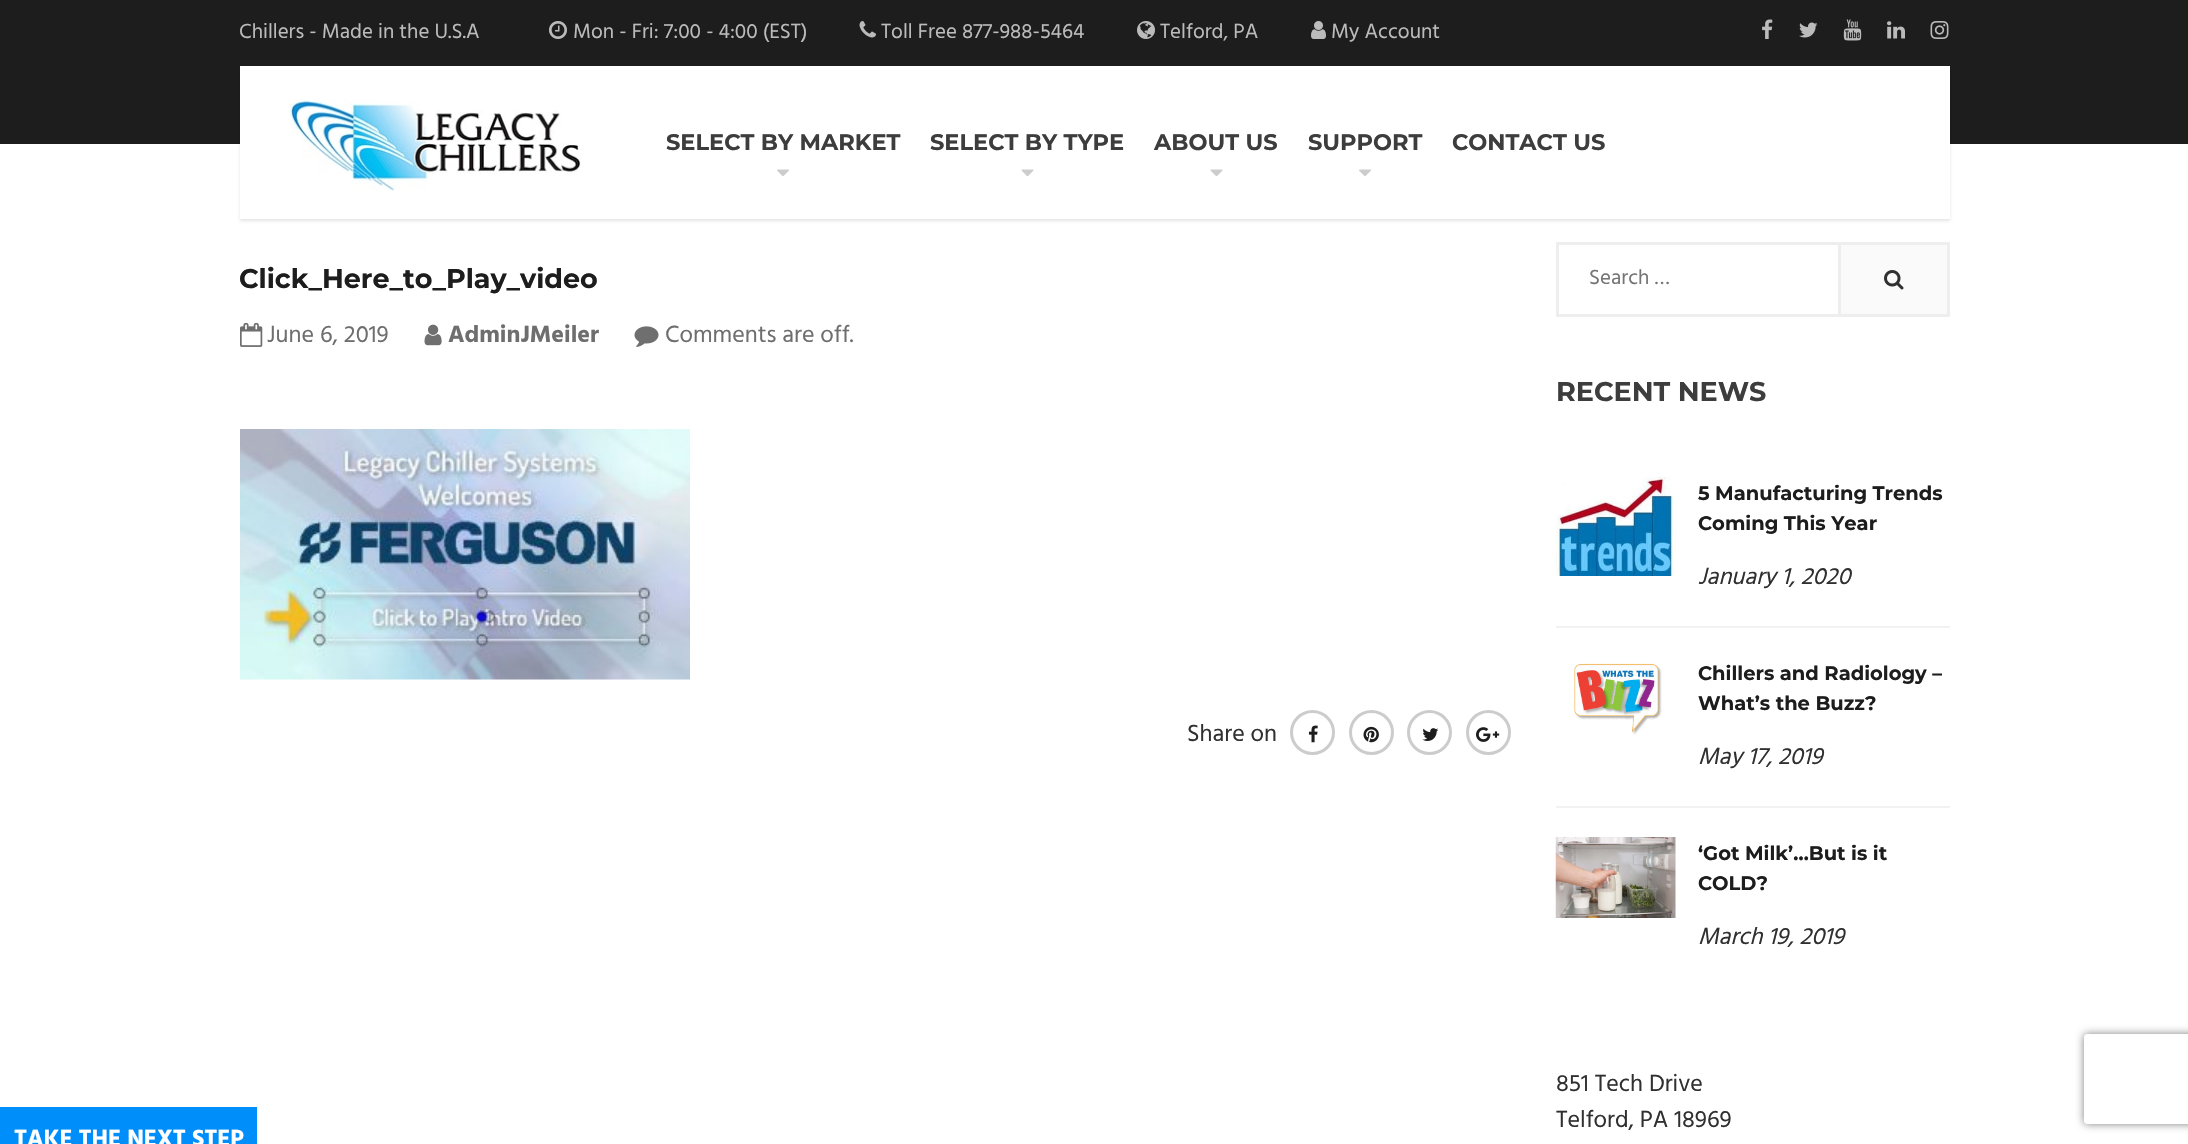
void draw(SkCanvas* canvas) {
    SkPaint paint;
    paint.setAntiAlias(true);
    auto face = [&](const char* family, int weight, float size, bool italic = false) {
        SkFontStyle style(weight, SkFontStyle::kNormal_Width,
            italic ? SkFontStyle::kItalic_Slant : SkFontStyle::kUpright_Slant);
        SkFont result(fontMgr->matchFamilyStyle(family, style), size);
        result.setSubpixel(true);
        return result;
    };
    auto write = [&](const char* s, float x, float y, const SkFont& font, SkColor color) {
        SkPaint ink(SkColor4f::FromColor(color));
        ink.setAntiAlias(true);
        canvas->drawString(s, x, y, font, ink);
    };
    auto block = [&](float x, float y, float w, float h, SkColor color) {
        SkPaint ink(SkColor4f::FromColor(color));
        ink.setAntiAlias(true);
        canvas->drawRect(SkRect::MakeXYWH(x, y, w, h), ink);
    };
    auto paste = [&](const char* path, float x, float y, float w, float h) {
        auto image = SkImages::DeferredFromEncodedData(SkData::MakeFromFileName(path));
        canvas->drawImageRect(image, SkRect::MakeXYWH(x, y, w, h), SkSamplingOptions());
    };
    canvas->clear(SK_ColorWHITE);
    block(0, 1107, 257, 37, SkColorSetRGB(0, 142, 250));
    auto kFont1 = face("Hind", 700, 24);
    write("TAKE THE NEXT STEP", 14, 1146, kFont1, SK_ColorWHITE);
    block(0, 0, 2188, 144, SkColorSetRGB(29, 29, 29));
    auto kFont2 = face("Hind", 400, 21);
    write("Chillers - Made in the U.S.A", 239, 38, kFont2, SkColorSetRGB(187, 187, 187));
    paste("pic1.png", 549, 21, 18, 18);
    write("Mon - Fri: 7:00 - 4:00 (EST)", 573, 38, kFont2, SkColorSetRGB(187, 187, 187));
    paste("pic2.png", 859, 21, 17, 17);
    write("Toll Free 877-988-5464", 881, 38, kFont2, SkColorSetRGB(187, 187, 187));
    paste("pic3.png", 1137, 21, 18, 18);
    write("Telford, PA", 1160, 38, kFont2, SkColorSetRGB(187, 187, 187));
    paste("pic4.png", 1311, 21, 15, 18);
    write("My Account", 1331, 38, kFont2, SkColorSetRGB(187, 187, 187));
    paste("pic5.png", 1762, 19, 11, 20);
    paste("pic6.png", 1799, 22, 19, 16);
    paste("pic7.png", 1843, 19, 19, 22);
    paste("pic8.png", 1887, 21, 18, 18);
    paste("pic9.png", 1930, 21, 19, 18);
    paint.setColor(SkColorSetARGB(26, 0, 0, 0));
    paint.setMaskFilter(SkMaskFilter::MakeBlur(kNormal_SkBlurStyle, 1.5f));
    canvas->drawRect(SkRect::MakeXYWH(240, 68, 1710, 153), paint);
    paint.setMaskFilter(nullptr);
    block(240, 66, 1710, 153, SK_ColorWHITE);
    paste("pic10.png", 288, 99, 293, 92);
    auto kFont3 = face("Montserrat", 700, 22.5f);
    write("SELECT BY MARKET", 666, 150, kFont3, SkColorSetRGB(61, 61, 61));
    paste("pic11.png", 777, 169, 12, 7);
    write("SELECT BY TYPE", 930, 150, kFont3, SkColorSetRGB(61, 61, 61));
    paste("pic12.png", 1021, 169, 13, 8);
    write("ABOUT US", 1154, 150, kFont3, SkColorSetRGB(61, 61, 61));
    paste("pic12.png", 1210, 169, 13, 8);
    write("SUPPORT", 1308, 150, kFont3, SkColorSetRGB(61, 61, 61));
    paste("pic11.png", 1359, 169, 12, 7);
    write("CONTACT US", 1452, 150, kFont3, SkColorSetRGB(61, 61, 61));
    auto kFont4 = face("Montserrat", 700, 27);
    write("Click_Here_to_Play_video", 239, 288, kFont4, SkColorSetRGB(29, 29, 29));
    paste("pic13.png", 240, 322, 23, 25);
    auto kFont5 = face("Hind", 400, 24);
    write("June 6, 2019", 267, 342, kFont5, SkColorSetRGB(110, 110, 110));
    paste("pic14.png", 424, 324, 18, 22);
    write("AdminJMeiler", 448, 342, kFont1, SkColorSetRGB(110, 110, 110));
    paste("pic15.png", 634, 326, 25, 21);
    write("Comments are off.", 665, 342, kFont5, SkColorSetRGB(110, 110, 110));
    paste("pic16.png", 240, 429, 450, 251);
    write("Share on", 1187, 741, kFont5, SkColorSetRGB(48, 48, 48));
    paint.setStyle(SkPaint::kStroke_Style);
    paint.setStrokeWidth(3);
    paint.setColor(SkColorSetRGB(204, 204, 204));
    canvas->drawCircle(1312.5f, 732.5f, 21, paint);
    paste("pic17.png", 1308, 725, 10, 18);
    canvas->drawCircle(1371.5f, 732.5f, 21, paint);
    paste("pic18.png", 1363, 726, 16, 17);
    canvas->drawCircle(1429.5f, 732.5f, 21, paint);
    paste("pic19.png", 1422, 728, 17, 13);
    canvas->drawCircle(1488.5f, 732.5f, 21, paint);
    paste("pic20.png", 1476, 727, 24, 15);
    paint.setColor(SkColorSetRGB(238, 238, 238));
    canvas->drawRect(SkRect::MakeXYWH(1557.5f, 243.5f, 391, 72), paint);
    block(1841, 245, 106, 69, SkColorSetRGB(250, 250, 250));
    paste("pic21.png", 1884, 270, 20, 20);
    canvas->drawRect(SkRect::MakeXYWH(1839.5f, 243.5f, 109, 72), paint);
    write("Search …", 1589, 284, kFont2, SkColorSetRGB(117, 117, 117));
    write("RECENT NEWS", 1556, 401, kFont4, SkColorSetRGB(61, 61, 61));
    block(1556, 626, 394, 2, SkColorSetRGB(242, 242, 242));
    paste("pic22.png", 1556, 477, 120, 99);
    auto kFont6 = face("Montserrat", 700, 19.5f);
    write("5 Manufacturing Trends", 1698, 500, kFont6, SkColorSetRGB(29, 29, 29));
    write("Coming This Year", 1698, 530, kFont6, SkColorSetRGB(29, 29, 29));
    auto kFont7 = face("Hind", 400, 24, true);
    write("January 1, 2020", 1698, 584, kFont7, SkColorSetRGB(48, 48, 48));
    block(1556, 806, 394, 2, SkColorSetRGB(242, 242, 242));
    paste("pic23.png", 1574, 663, 88, 72);
    write("Chillers and Radiology –", 1698, 680, kFont6, SkColorSetRGB(29, 29, 29));
    write("What’s the Buzz?", 1698, 710, kFont6, SkColorSetRGB(29, 29, 29));
    write("May 17, 2019", 1698, 764, kFont7, SkColorSetRGB(48, 48, 48));
    paste("pic24.png", 1555, 837, 121, 81);
    write("‘Got Milk’…But is it", 1698, 860, kFont6, SkColorSetRGB(29, 29, 29));
    write("COLD?", 1698, 890, kFont6, SkColorSetRGB(29, 29, 29));
    write("March 19, 2019", 1698, 944, kFont7, SkColorSetRGB(48, 48, 48));
    write("851 Tech Drive", 1556, 1091, kFont5, SkColorSetRGB(48, 48, 48));
    write("Telford, PA 18969", 1556, 1127, kFont5, SkColorSetRGB(48, 48, 48));
    canvas->save();
    canvas->clipPath(SkPathBuilder(SkPathFillType::kEvenOdd).moveTo(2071, 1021).lineTo(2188, 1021).lineTo(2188, 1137).lineTo(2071, 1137).close().moveTo(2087, 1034).lineTo(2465, 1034).cubicTo(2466.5f, 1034, 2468, 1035.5f, 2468, 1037).lineTo(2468, 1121).cubicTo(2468, 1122.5f, 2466.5f, 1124, 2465, 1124).lineTo(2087, 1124).cubicTo(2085.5f, 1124, 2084, 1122.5f, 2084, 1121).lineTo(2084, 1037).cubicTo(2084, 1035.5f, 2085.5f, 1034, 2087, 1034).close().detach(), true);
    paint.setStyle(SkPaint::kFill_Style);
    paint.setColor(SkColorSetRGB(128, 128, 128));
    paint.setMaskFilter(SkMaskFilter::MakeBlur(kNormal_SkBlurStyle, 4));
    canvas->drawRoundRect(SkRect::MakeXYWH(2084, 1034, 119, 90), 3, 3, paint);
    paint.setMaskFilter(nullptr);
    canvas->restore();
}
